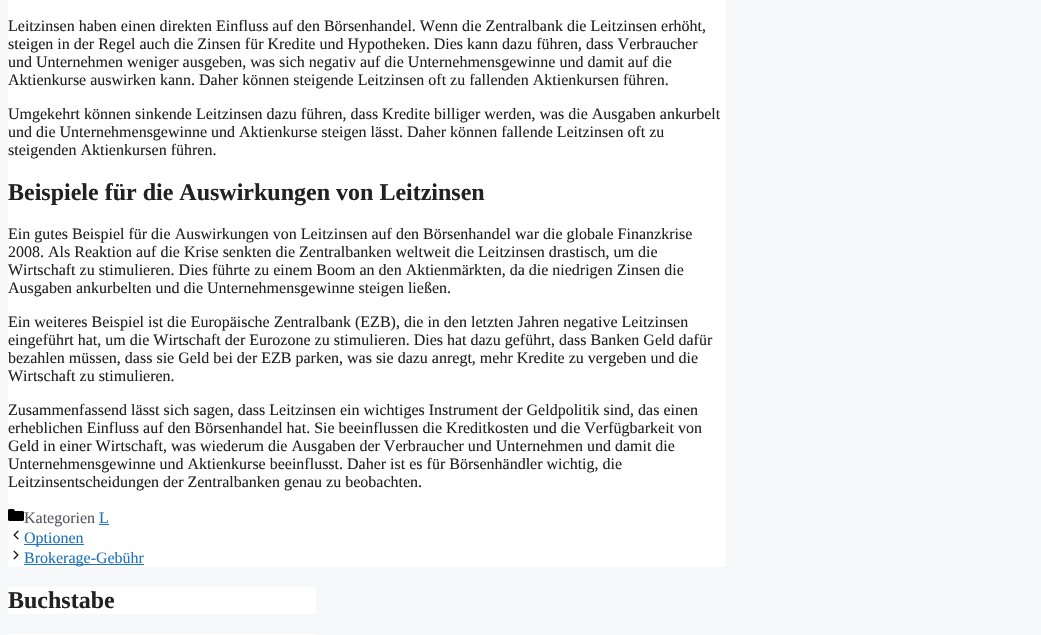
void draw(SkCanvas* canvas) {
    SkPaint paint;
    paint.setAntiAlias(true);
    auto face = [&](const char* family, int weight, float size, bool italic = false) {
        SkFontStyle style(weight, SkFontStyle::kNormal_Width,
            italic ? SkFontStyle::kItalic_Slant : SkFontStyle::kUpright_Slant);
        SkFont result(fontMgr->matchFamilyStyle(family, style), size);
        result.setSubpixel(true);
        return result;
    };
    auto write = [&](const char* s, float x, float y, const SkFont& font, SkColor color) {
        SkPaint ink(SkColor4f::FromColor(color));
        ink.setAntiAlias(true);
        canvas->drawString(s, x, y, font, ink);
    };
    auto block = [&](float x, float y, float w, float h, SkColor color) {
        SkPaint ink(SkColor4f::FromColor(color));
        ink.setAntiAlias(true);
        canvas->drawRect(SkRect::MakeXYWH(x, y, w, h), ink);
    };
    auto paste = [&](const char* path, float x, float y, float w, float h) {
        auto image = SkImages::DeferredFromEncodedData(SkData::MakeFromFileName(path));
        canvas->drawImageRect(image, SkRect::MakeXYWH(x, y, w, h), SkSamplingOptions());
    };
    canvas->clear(SkColorSetRGB(247, 248, 249));
    block(8, 0, 718, 567, SK_ColorWHITE);
    auto kFont1 = face("Liberation Serif", 400, 16);
    write("Leitzinsen haben einen direkten Einfluss auf den Börsenhandel. Wenn die Zentralbank die Leitzinsen erhöht,", 8, 31, kFont1, SkColorSetRGB(34, 34, 34));
    write("steigen in der Regel auch die Zinsen für Kredite und Hypotheken. Dies kann dazu führen, dass Verbraucher", 8, 49, kFont1, SkColorSetRGB(34, 34, 34));
    write("und Unternehmen weniger ausgeben, was sich negativ auf die Unternehmensgewinne und damit auf die", 8, 67, kFont1, SkColorSetRGB(34, 34, 34));
    write("Aktienkurse auswirken kann. Daher können steigende Leitzinsen oft zu fallenden Aktienkursen führen.", 8, 85, kFont1, SkColorSetRGB(34, 34, 34));
    write("Umgekehrt können sinkende Leitzinsen dazu führen, dass Kredite billiger werden, was die Ausgaben ankurbelt", 8, 119, kFont1, SkColorSetRGB(34, 34, 34));
    write("und die Unternehmensgewinne und Aktienkurse steigen lässt. Daher können fallende Leitzinsen oft zu", 8, 137, kFont1, SkColorSetRGB(34, 34, 34));
    write("steigenden Aktienkursen führen.", 8, 155, kFont1, SkColorSetRGB(34, 34, 34));
    auto kFont2 = face("Liberation Serif", 700, 24);
    write("Beispiele für die Auswirkungen von Leitzinsen", 8, 200, kFont2, SkColorSetRGB(34, 34, 34));
    write("Ein gutes Beispiel für die Auswirkungen von Leitzinsen auf den Börsenhandel war die globale Finanzkrise", 8, 239, kFont1, SkColorSetRGB(34, 34, 34));
    write("2008. Als Reaktion auf die Krise senkten die Zentralbanken weltweit die Leitzinsen drastisch, um die", 8, 257, kFont1, SkColorSetRGB(34, 34, 34));
    write("Wirtschaft zu stimulieren. Dies führte zu einem Boom an den Aktienmärkten, da die niedrigen Zinsen die", 8, 275, kFont1, SkColorSetRGB(34, 34, 34));
    write("Ausgaben ankurbelten und die Unternehmensgewinne steigen ließen.", 8, 293, kFont1, SkColorSetRGB(34, 34, 34));
    write("Ein weiteres Beispiel ist die Europäische Zentralbank (EZB), die in den letzten Jahren negative Leitzinsen", 8, 327, kFont1, SkColorSetRGB(34, 34, 34));
    write("eingeführt hat, um die Wirtschaft der Eurozone zu stimulieren. Dies hat dazu geführt, dass Banken Geld dafür", 8, 345, kFont1, SkColorSetRGB(34, 34, 34));
    write("bezahlen müssen, dass sie Geld bei der EZB parken, was sie dazu anregt, mehr Kredite zu vergeben und die", 8, 363, kFont1, SkColorSetRGB(34, 34, 34));
    write("Wirtschaft zu stimulieren.", 8, 381, kFont1, SkColorSetRGB(34, 34, 34));
    write("Zusammenfassend lässt sich sagen, dass Leitzinsen ein wichtiges Instrument der Geldpolitik sind, das einen", 8, 415, kFont1, SkColorSetRGB(34, 34, 34));
    write("erheblichen Einfluss auf den Börsenhandel hat. Sie beeinflussen die Kreditkosten und die Verfügbarkeit von", 8, 433, kFont1, SkColorSetRGB(34, 34, 34));
    write("Geld in einer Wirtschaft, was wiederum die Ausgaben der Verbraucher und Unternehmen und damit die", 8, 451, kFont1, SkColorSetRGB(34, 34, 34));
    write("Unternehmensgewinne und Aktienkurse beeinflusst. Daher ist es für Börsenhändler wichtig, die", 8, 469, kFont1, SkColorSetRGB(34, 34, 34));
    write("Leitzinsentscheidungen der Zentralbanken genau zu beobachten.", 8, 487, kFont1, SkColorSetRGB(34, 34, 34));
    paste("pic1.png", 8, 509, 16, 12);
    write("Kategorien", 24, 523, kFont1, SkColorSetRGB(87, 87, 96));
    block(99, 524, 10, 1, SkColorSetRGB(30, 115, 190));
    write("L", 99, 523, kFont1, SkColorSetRGB(30, 115, 190));
    paste("pic2.png", 13, 530, 6, 10);
    block(24, 544, 60, 1, SkColorSetRGB(30, 115, 190));
    write("Optionen", 24, 543, kFont1, SkColorSetRGB(30, 115, 190));
    paste("pic3.png", 13, 550, 6, 10);
    block(24, 564, 120, 1, SkColorSetRGB(30, 115, 190));
    write("Brokerage-Gebühr", 24, 563, kFont1, SkColorSetRGB(30, 115, 190));
    block(8, 587, 308, 27, SK_ColorWHITE);
    write("Buchstabe", 8, 608, kFont2, SkColorSetRGB(34, 34, 34));
    block(8, 634, 308, 1, SK_ColorWHITE);
}
